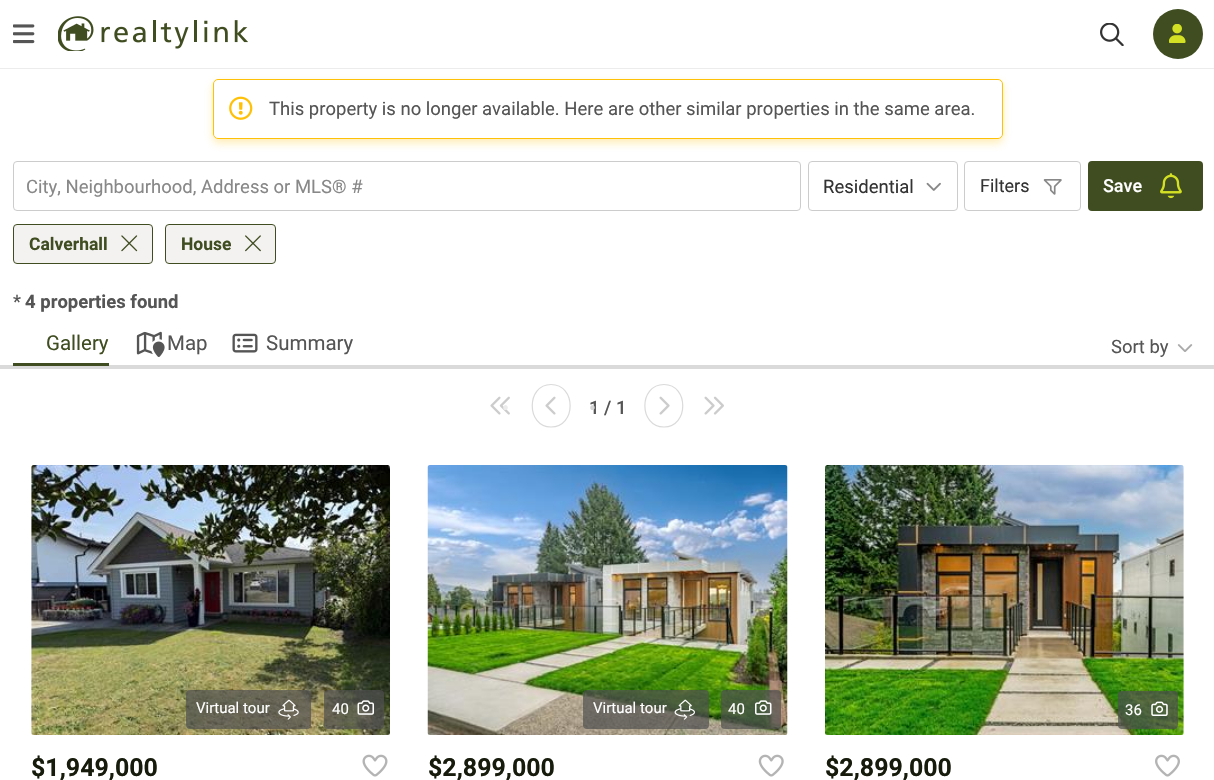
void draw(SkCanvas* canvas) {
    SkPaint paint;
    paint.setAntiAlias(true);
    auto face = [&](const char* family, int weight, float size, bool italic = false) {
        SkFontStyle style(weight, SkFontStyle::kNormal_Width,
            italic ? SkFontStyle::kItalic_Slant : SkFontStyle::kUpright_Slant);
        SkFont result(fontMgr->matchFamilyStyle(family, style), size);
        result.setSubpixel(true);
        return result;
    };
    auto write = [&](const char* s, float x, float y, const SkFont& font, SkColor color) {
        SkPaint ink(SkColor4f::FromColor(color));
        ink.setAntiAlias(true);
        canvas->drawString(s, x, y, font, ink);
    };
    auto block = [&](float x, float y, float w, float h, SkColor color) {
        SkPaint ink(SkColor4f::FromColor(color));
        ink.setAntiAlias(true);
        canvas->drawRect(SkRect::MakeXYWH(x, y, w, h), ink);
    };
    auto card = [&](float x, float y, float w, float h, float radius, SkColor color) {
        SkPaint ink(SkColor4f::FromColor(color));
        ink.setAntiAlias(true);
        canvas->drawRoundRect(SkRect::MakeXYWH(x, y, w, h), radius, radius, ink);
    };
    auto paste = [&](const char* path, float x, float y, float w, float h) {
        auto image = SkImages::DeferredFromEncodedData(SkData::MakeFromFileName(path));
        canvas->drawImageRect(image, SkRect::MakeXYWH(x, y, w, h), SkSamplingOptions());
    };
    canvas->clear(SK_ColorWHITE);
    block(0, 68, 1214, 1, SkColorSetRGB(236, 236, 236));
    paste("pic1.png", 13, 24, 22, 20);
    paste("pic2.png", 58, 16, 190, 35);
    paste("pic3.png", 1100, 23, 24, 23);
    paint.setColor(SkColorSetRGB(63, 77, 33));
    canvas->drawCircle(1178, 34, 25, paint);
    paste("pic4.png", 1169, 24, 17, 19);
    paint.setColor(SkColorSetARGB(77, 255, 193, 7));
    paint.setMaskFilter(SkMaskFilter::MakeBlur(kNormal_SkBlurStyle, 4));
    canvas->drawRoundRect(SkRect::MakeXYWH(213, 83, 790, 60), 5, 5, paint);
    paint.setMaskFilter(nullptr);
    card(213, 79, 790, 60, 5, SK_ColorWHITE);
    paste("pic5.png", 229, 96, 24, 24);
    paint.setStyle(SkPaint::kStroke_Style);
    paint.setStrokeWidth(1);
    paint.setColor(SkColorSetRGB(255, 193, 7));
    canvas->drawRoundRect(SkRect::MakeXYWH(213.5f, 79.5f, 789, 59), 4.5f, 4.5f, paint);
    auto kFont1 = face("Roboto", 400, 18.5f);
    write("This property is no longer available. Here are other similar properties in the same area.", 269, 115, kFont1, SkColorSetRGB(85, 85, 85));
    paint.setColor(SkColorSetRGB(204, 204, 204));
    canvas->drawRoundRect(SkRect::MakeXYWH(13.5f, 161.5f, 787, 49), 3.5f, 3.5f, paint);
    write("City, Neighbourhood, Address or MLS® #", 26, 193, kFont1, SkColorSetRGB(136, 136, 136));
    canvas->drawRoundRect(SkRect::MakeXYWH(808.5f, 161.5f, 149, 49), 3.5f, 3.5f, paint);
    write("Residential", 823, 193, kFont1, SkColorSetRGB(51, 51, 51));
    paste("pic6.png", 926, 182, 15, 9);
    canvas->drawRoundRect(SkRect::MakeXYWH(964.5f, 161.5f, 116, 49), 3.5f, 3.5f, paint);
    auto kFont2 = face("Roboto", 400, 18);
    write("Filters", 980, 192, kFont2, SkColorSetRGB(51, 51, 51));
    paste("pic7.png", 1043, 179, 19, 16);
    card(1088, 161, 115, 50, 4, SkColorSetRGB(63, 77, 33));
    auto kFont3 = face("Roboto", 500, 18);
    write("Save", 1103, 192, kFont3, SK_ColorWHITE);
    paste("pic8.png", 1160, 173, 22, 26);
    paint.setStyle(SkPaint::kFill_Style);
    paint.setColor(SkColorSetRGB(244, 242, 241));
    canvas->drawRoundRect(SkRect::MakeXYWH(13.5f, 224.5f, 139, 39), 3.5f, 3.5f, paint);
    paint.setStyle(SkPaint::kStroke_Style);
    paint.setColor(SkColorSetRGB(63, 77, 33));
    canvas->drawRoundRect(SkRect::MakeXYWH(13.5f, 224.5f, 139, 39), 3.5f, 3.5f, paint);
    auto kFont4 = face("Roboto", 700, 17.5f);
    write("Calverhall", 29, 250, kFont4, SkColorSetRGB(63, 77, 33));
    paste("pic9.png", 121, 235, 17, 17);
    paint.setStyle(SkPaint::kFill_Style);
    paint.setColor(SkColorSetRGB(244, 242, 241));
    canvas->drawRoundRect(SkRect::MakeXYWH(165.5f, 224.5f, 110, 39), 3.5f, 3.5f, paint);
    paint.setStyle(SkPaint::kStroke_Style);
    paint.setColor(SkColorSetRGB(63, 77, 33));
    canvas->drawRoundRect(SkRect::MakeXYWH(165.5f, 224.5f, 110, 39), 3.5f, 3.5f, paint);
    write("House", 181, 250, kFont4, SkColorSetRGB(63, 77, 33));
    paste("pic10.png", 245, 235, 16, 17);
    block(0, 365, 1214, 4, SkColorSetRGB(218, 218, 218));
    write("*", 13, 308, kFont1, SkColorSetRGB(85, 85, 85));
    auto kFont5 = face("Roboto", 700, 18.5f);
    write("4 properties found", 25, 308, kFont5, SkColorSetRGB(85, 85, 85));
    block(13, 363, 96, 3, SkColorSetRGB(63, 77, 33));
    auto kFont6 = face("Roboto", 400, 20.5f);
    write("Gallery", 46, 350, kFont6, SkColorSetRGB(63, 77, 33));
    paste("pic11.png", 136, 331, 29, 26);
    write("Map", 167, 350, kFont6, SkColorSetRGB(85, 85, 85));
    paste("pic12.png", 232, 333, 26, 20);
    write("Summary", 266, 350, kFont6, SkColorSetRGB(85, 85, 85));
    write("Sort by", 1111, 353, kFont1, SkColorSetRGB(85, 85, 85));
    paste("pic13.png", 1177, 344, 16, 8);
    paste("pic14.png", 490, 396, 20, 19);
    auto kFont7 = face("Roboto", 500, 20);
    write("•", 502, 415, kFont7, SkColorSetRGB(236, 236, 236));
    paint.setStrokeWidth(1.2f);
    paint.setColor(SkColorSetRGB(218, 218, 218));
    canvas->drawPath(SkPathBuilder().moveTo(551, 384.5f).cubicTo(576.5f, 384.5f, 576.5f, 427, 551, 427).cubicTo(526, 427, 526, 384.5f, 551, 384.5f).close().detach(), paint);
    paste("pic15.png", 545, 396, 11, 19);
    auto kFont8 = face("Roboto", 500, 18.5f);
    write("1 / 1", 589, 414, kFont8, SkColorSetRGB(85, 85, 85));
    write("•", 589, 415, kFont7, SkColorSetRGB(213, 213, 213));
    canvas->drawPath(SkPathBuilder().moveTo(664, 384.5f).cubicTo(689, 384.5f, 689, 427, 664, 427).cubicTo(638.5f, 427, 638.5f, 384.5f, 664, 384.5f).close().detach(), paint);
    paste("pic16.png", 659, 396, 11, 19);
    paste("pic17.png", 704, 396, 20, 19);
    paste("pic18.png", 31, 465, 359, 270);
    card(186, 690, 125, 39, 4, SkColorSetARGB(179, 80, 80, 80));
    auto kFont9 = face("Roboto", 400, 15);
    write("Virtual tour", 196, 713, kFont9, SK_ColorWHITE);
    paste("pic19.png", 278, 699, 21, 21);
    card(324, 690, 60, 39, 4, SkColorSetARGB(179, 80, 80, 80));
    write("40", 332, 714, kFont9, SK_ColorWHITE);
    paste("pic20.png", 357, 700, 17, 15);
    auto kFont10 = face("Roboto", 700, 25);
    write("$1,949,000", 31, 776, kFont10, SkColorSetRGB(22, 27, 12));
    paste("pic21.png", 362, 754, 26, 23);
    paste("pic22.png", 427, 465, 361, 270);
    card(583, 690, 126, 39, 4, SkColorSetARGB(179, 80, 80, 80));
    write("Virtual tour", 593, 713, kFont9, SK_ColorWHITE);
    paste("pic23.png", 674, 699, 21, 21);
    card(721, 690, 60, 39, 4, SkColorSetARGB(179, 80, 80, 80));
    write("40", 728, 714, kFont9, SK_ColorWHITE);
    paste("pic24.png", 755, 700, 17, 15);
    write("$2,899,000", 428, 776, kFont10, SkColorSetRGB(22, 27, 12));
    paste("pic25.png", 758, 754, 26, 23);
    paste("pic26.png", 825, 465, 359, 270);
    card(1118, 691, 60, 38, 4, SkColorSetARGB(179, 80, 80, 80));
    write("36", 1125, 715, kFont9, SK_ColorWHITE);
    paste("pic27.png", 1151, 701, 17, 15);
    write("$2,899,000", 825, 776, kFont10, SkColorSetRGB(22, 27, 12));
    paste("pic28.png", 1155, 754, 25, 23);
}
